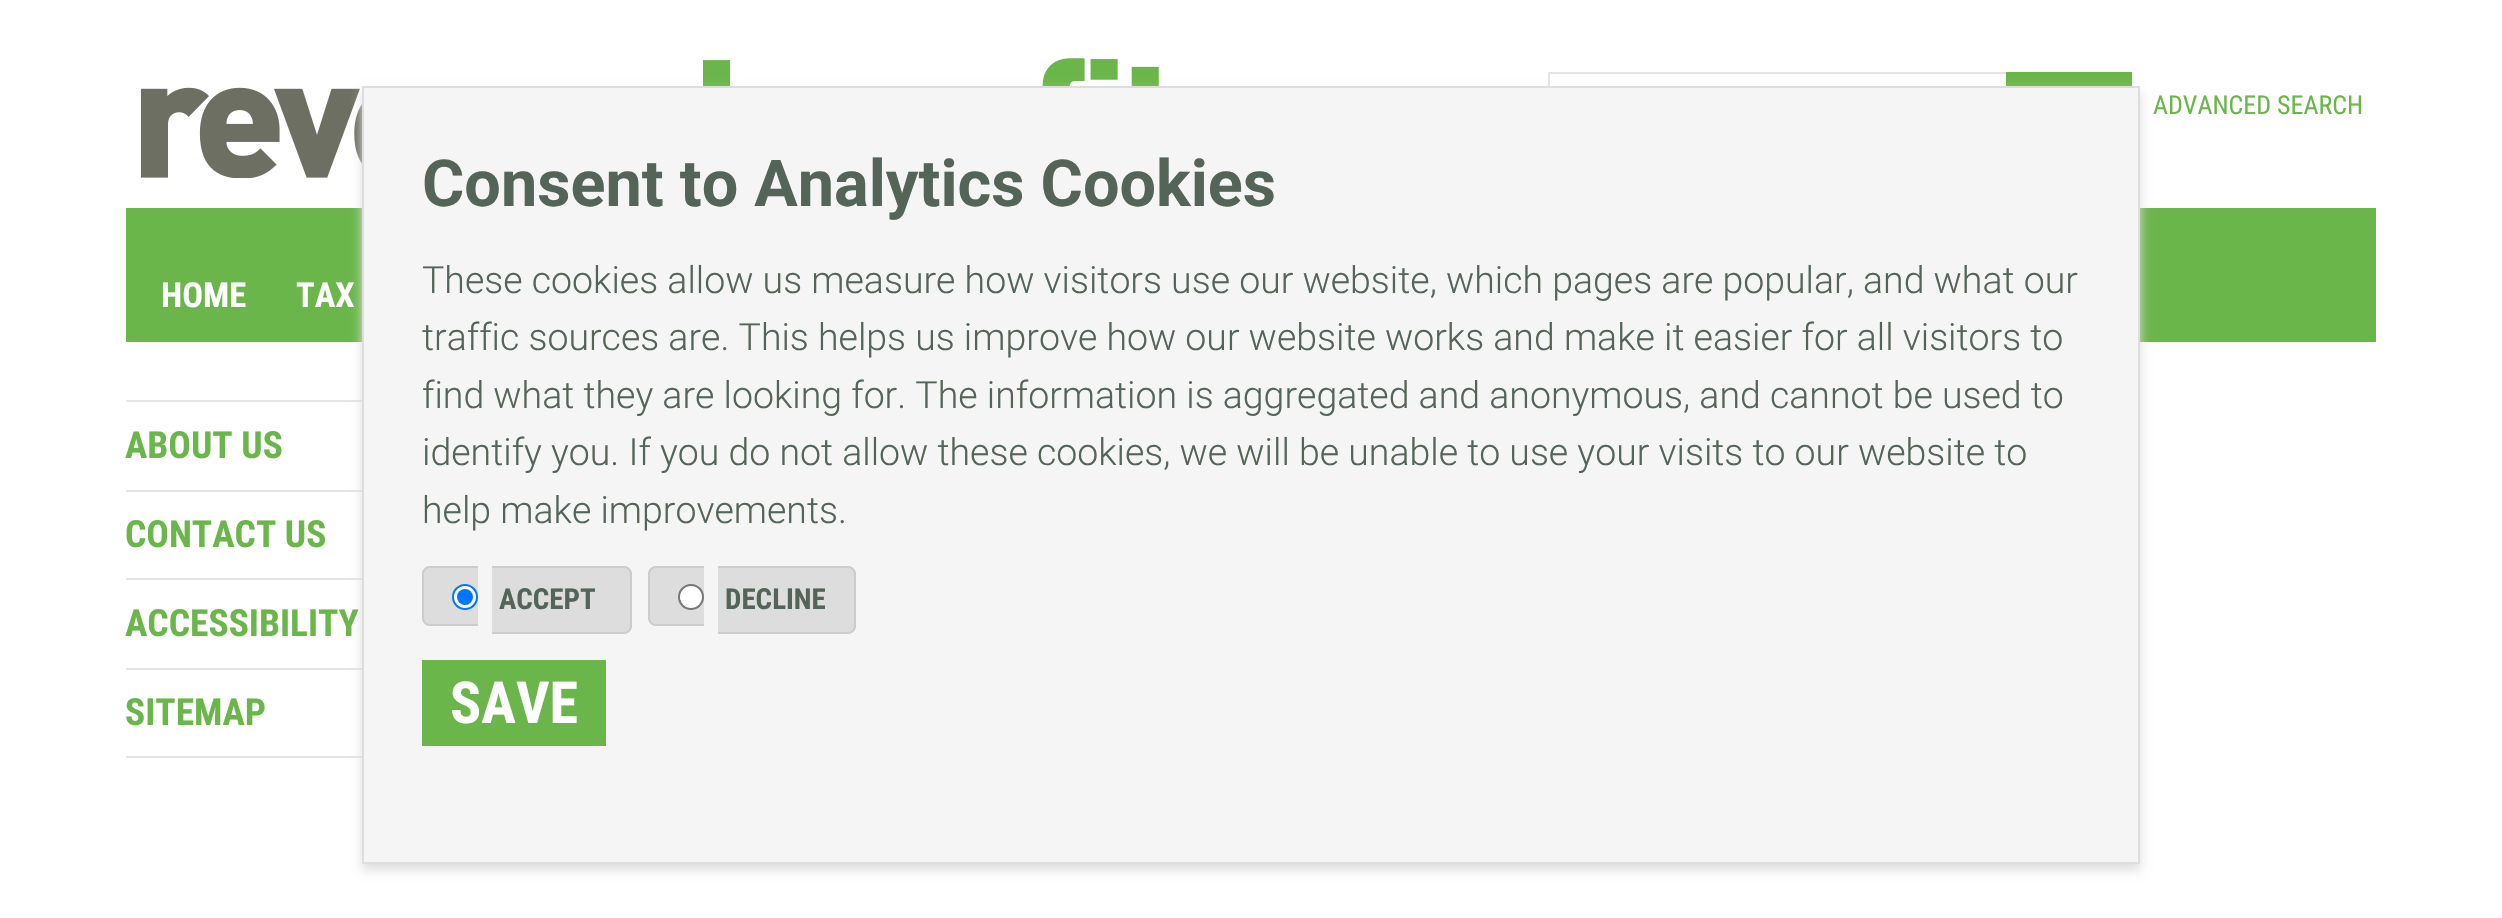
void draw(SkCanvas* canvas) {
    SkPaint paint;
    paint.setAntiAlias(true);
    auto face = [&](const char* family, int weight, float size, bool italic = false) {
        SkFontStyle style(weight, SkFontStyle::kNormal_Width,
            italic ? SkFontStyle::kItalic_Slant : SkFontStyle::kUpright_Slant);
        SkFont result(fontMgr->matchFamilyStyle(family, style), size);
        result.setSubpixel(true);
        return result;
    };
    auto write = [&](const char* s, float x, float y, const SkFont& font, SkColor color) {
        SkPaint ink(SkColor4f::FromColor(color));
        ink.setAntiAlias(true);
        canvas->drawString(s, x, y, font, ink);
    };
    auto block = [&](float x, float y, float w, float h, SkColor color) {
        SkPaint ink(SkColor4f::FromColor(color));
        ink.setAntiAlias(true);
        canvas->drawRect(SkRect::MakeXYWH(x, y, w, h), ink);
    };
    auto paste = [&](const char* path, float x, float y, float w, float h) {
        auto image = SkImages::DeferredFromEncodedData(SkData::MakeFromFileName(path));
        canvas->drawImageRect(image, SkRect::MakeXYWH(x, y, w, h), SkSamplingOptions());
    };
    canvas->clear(SK_ColorWHITE);
    paste("pic1.png", 140, 58, 1019, 120);
    paint.setStyle(SkPaint::kStroke_Style);
    paint.setStrokeWidth(2);
    paint.setColor(SkColorSetRGB(227, 229, 227));
    canvas->drawRect(SkRect::MakeXYWH(1549, 73, 458, 64), paint);
    block(2006, 72, 126, 14, SkColorSetRGB(107, 182, 75));
    auto kFont1 = face("Roboto Condensed", 400, 26);
    write("ADVANCED SEARCH", 2153, 114, kFont1, SkColorSetRGB(107, 182, 75));
    block(126, 208, 2250, 134, SkColorSetRGB(107, 182, 75));
    auto kFont2 = face("Roboto Condensed", 700, 34.5f);
    write("HOME", 161, 307, kFont2, SK_ColorWHITE);
    write("TAX", 296, 307, kFont2, SK_ColorWHITE);
    block(126, 756, 236, 2, SkColorSetRGB(227, 229, 227));
    block(126, 400, 236, 2, SkColorSetRGB(227, 229, 227));
    block(126, 490, 236, 2, SkColorSetRGB(227, 229, 227));
    block(126, 578, 236, 2, SkColorSetRGB(227, 229, 227));
    block(126, 668, 236, 2, SkColorSetRGB(227, 229, 227));
    paint.setStyle(SkPaint::kFill_Style);
    paint.setColor(SkColorSetRGB(221, 221, 221));
    paint.setMaskFilter(SkMaskFilter::MakeBlur(kNormal_SkBlurStyle, 5));
    canvas->drawRect(SkRect::MakeXYWH(362, 92, 1778, 778), paint);
    paint.setMaskFilter(nullptr);
    paint.setColor(SkColorSetRGB(245, 245, 245));
    canvas->drawRect(SkRect::MakeXYWH(363, 87, 1776, 776), paint);
    paint.setStyle(SkPaint::kStroke_Style);
    paint.setColor(SkColorSetRGB(221, 221, 221));
    canvas->drawRect(SkRect::MakeXYWH(363, 87, 1776, 776), paint);
    auto kFont3 = face("Roboto", 700, 64.75f);
    write("Consent to Analytics Cookies", 422, 206, kFont3, SkColorSetRGB(85, 100, 88));
    auto kFont4 = face("Roboto", 300, 37.45f);
    write("These cookies allow us measure how visitors use our website, which pages are popular, and what our", 422, 293, kFont4, SkColorSetRGB(85, 100, 88));
    write("traffic sources are. This helps us improve how our website works and make it easier for all visitors to", 422, 350, kFont4, SkColorSetRGB(85, 100, 88));
    write("find what they are looking for. The information is aggregated and anonymous, and cannot be used to", 422, 408, kFont4, SkColorSetRGB(85, 100, 88));
    write("identify you. If you do not allow these cookies, we will be unable to use your visits to our website to", 422, 465, kFont4, SkColorSetRGB(85, 100, 88));
    write("help make improvements.", 422, 523, kFont4, SkColorSetRGB(85, 100, 88));
    paint.setStyle(SkPaint::kFill_Style);
    canvas->drawPath(SkPathBuilder().moveTo(430, 566).lineTo(478, 566).lineTo(478, 626).lineTo(430, 626).cubicTo(425.5f, 626, 422, 622.5f, 422, 618).lineTo(422, 574).cubicTo(422, 569.5f, 425.5f, 566, 430, 566).close().detach(), paint);
    paint.setColor(SkColorSetRGB(204, 204, 204));
    canvas->drawPath(SkPathBuilder(SkPathFillType::kEvenOdd).moveTo(430, 566).lineTo(478, 566).lineTo(478, 626).lineTo(430, 626).cubicTo(426, 626, 422, 622, 422, 618).lineTo(422, 574).cubicTo(422, 570, 426, 566, 430, 566).close().moveTo(430, 568).lineTo(478, 568).lineTo(478, 624).lineTo(430, 624).cubicTo(427, 624, 424, 621, 424, 618).lineTo(424, 574).cubicTo(424, 571, 427, 568, 430, 568).close().detach(), paint);
    paint.setColor(SkColorSetRGB(221, 221, 221));
    canvas->drawPath(SkPathBuilder().moveTo(492, 566).lineTo(624, 566).cubicTo(628.5f, 566, 632, 569.5f, 632, 574).lineTo(632, 626).cubicTo(632, 630.5f, 628.5f, 634, 624, 634).lineTo(492, 634).close().detach(), paint);
    paint.setColor(SkColorSetRGB(204, 204, 204));
    canvas->drawPath(SkPathBuilder(SkPathFillType::kEvenOdd).moveTo(492, 566).lineTo(624, 566).cubicTo(628, 566, 632, 570, 632, 574).lineTo(632, 626).cubicTo(632, 630, 628, 634, 624, 634).lineTo(492, 634).close().moveTo(492, 568).lineTo(624, 568).cubicTo(627, 568, 630, 571, 630, 574).lineTo(630, 626).cubicTo(630, 629, 627, 632, 624, 632).lineTo(492, 632).close().detach(), paint);
    paint.setColor(SK_ColorWHITE);
    canvas->drawCircle(465, 597, 12, paint);
    paint.setStyle(SkPaint::kStroke_Style);
    paint.setColor(SkColorSetRGB(0, 117, 255));
    canvas->drawCircle(465, 597, 12, paint);
    paint.setStyle(SkPaint::kFill_Style);
    canvas->drawCircle(465, 597, 8, paint);
    auto kFont5 = face("Roboto Condensed", 700, 29);
    write("ACCEPT", 499, 609, kFont5, SkColorSetRGB(85, 100, 88));
    paint.setColor(SkColorSetRGB(221, 221, 221));
    canvas->drawPath(SkPathBuilder().moveTo(656, 566).lineTo(704, 566).lineTo(704, 626).lineTo(656, 626).cubicTo(651.5f, 626, 648, 622.5f, 648, 618).lineTo(648, 574).cubicTo(648, 569.5f, 651.5f, 566, 656, 566).close().detach(), paint);
    paint.setColor(SkColorSetRGB(204, 204, 204));
    canvas->drawPath(SkPathBuilder(SkPathFillType::kEvenOdd).moveTo(656, 566).lineTo(704, 566).lineTo(704, 626).lineTo(656, 626).cubicTo(652, 626, 648, 622, 648, 618).lineTo(648, 574).cubicTo(648, 570, 652, 566, 656, 566).close().moveTo(656, 568).lineTo(704, 568).lineTo(704, 624).lineTo(656, 624).cubicTo(653, 624, 650, 621, 650, 618).lineTo(650, 574).cubicTo(650, 571, 653, 568, 656, 568).close().detach(), paint);
    paint.setColor(SkColorSetRGB(221, 221, 221));
    canvas->drawPath(SkPathBuilder().moveTo(718, 566).lineTo(848, 566).cubicTo(852.5f, 566, 856, 569.5f, 856, 574).lineTo(856, 626).cubicTo(856, 630.5f, 852.5f, 634, 848, 634).lineTo(718, 634).close().detach(), paint);
    paint.setColor(SkColorSetRGB(204, 204, 204));
    canvas->drawPath(SkPathBuilder(SkPathFillType::kEvenOdd).moveTo(718, 566).lineTo(848, 566).cubicTo(852, 566, 856, 570, 856, 574).lineTo(856, 626).cubicTo(856, 630, 852, 634, 848, 634).lineTo(718, 634).close().moveTo(718, 568).lineTo(848, 568).cubicTo(851, 568, 854, 571, 854, 574).lineTo(854, 626).cubicTo(854, 629, 851, 632, 848, 632).lineTo(718, 632).close().detach(), paint);
    paint.setColor(SK_ColorWHITE);
    canvas->drawCircle(691, 597, 12, paint);
    paint.setStyle(SkPaint::kStroke_Style);
    paint.setColor(SkColorSetRGB(118, 118, 118));
    canvas->drawCircle(691, 597, 12, paint);
    write("DECLINE", 725, 609, kFont5, SkColorSetRGB(85, 100, 88));
    block(422, 660, 184, 86, SkColorSetRGB(107, 182, 75));
    auto kFont6 = face("Roboto Condensed", 700, 58);
    write("SAVE", 450, 723, kFont6, SK_ColorWHITE);
    auto kFont7 = face("Roboto Condensed", 700, 37.45f);
    write("ABOUT US", 125, 458, kFont7, SkColorSetRGB(107, 182, 75));
    write("CONTACT US", 125, 547, kFont7, SkColorSetRGB(107, 182, 75));
    write("ACCESSIBILITY", 125, 636, kFont7, SkColorSetRGB(107, 182, 75));
    write("SITEMAP", 125, 725, kFont7, SkColorSetRGB(107, 182, 75));
}
